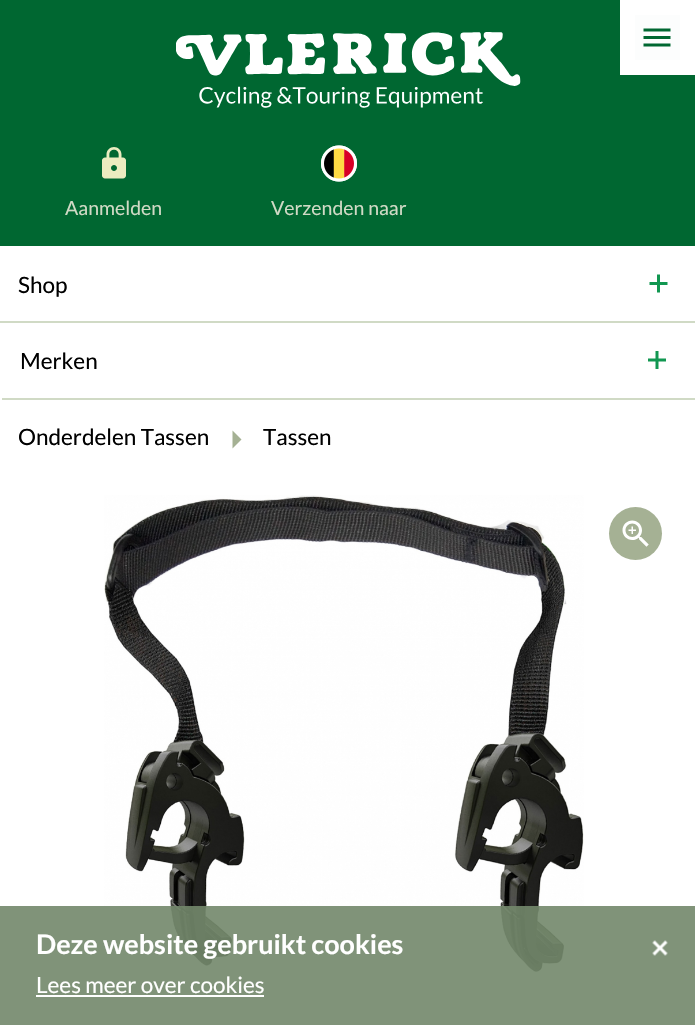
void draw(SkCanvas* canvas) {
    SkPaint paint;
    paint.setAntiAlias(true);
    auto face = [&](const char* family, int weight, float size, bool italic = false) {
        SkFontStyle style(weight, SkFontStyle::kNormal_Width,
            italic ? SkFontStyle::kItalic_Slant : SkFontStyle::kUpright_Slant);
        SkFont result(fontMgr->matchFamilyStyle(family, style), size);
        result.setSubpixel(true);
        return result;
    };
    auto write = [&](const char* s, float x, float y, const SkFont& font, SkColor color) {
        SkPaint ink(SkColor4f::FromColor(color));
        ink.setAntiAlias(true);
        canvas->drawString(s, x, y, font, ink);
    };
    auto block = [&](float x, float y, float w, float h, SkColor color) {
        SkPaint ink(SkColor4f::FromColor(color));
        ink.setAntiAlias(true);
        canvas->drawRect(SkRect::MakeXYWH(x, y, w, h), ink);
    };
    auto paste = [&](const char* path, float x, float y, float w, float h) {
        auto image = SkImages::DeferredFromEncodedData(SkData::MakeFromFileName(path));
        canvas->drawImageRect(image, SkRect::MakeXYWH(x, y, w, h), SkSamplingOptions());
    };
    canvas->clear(SK_ColorWHITE);
    block(0, 0, 695, 246, SkColorSetRGB(0, 103, 49));
    paste("pic1.png", 176, 32, 345, 76);
    block(620, 0, 75, 75, SK_ColorWHITE);
    block(635, 15, 45, 45, SkColorSetRGB(252, 253, 253));
    paint.setColor(SkColorSetRGB(0, 103, 49));
    canvas->drawPath(SkPathBuilder(SkPathFillType::kEvenOdd).moveTo(643.5f, 46.5f).lineTo(670.5f, 46.5f).lineTo(670.5f, 43.5f).lineTo(643.5f, 43.5f).close().moveTo(643.5f, 39).lineTo(670.5f, 39).lineTo(670.5f, 36).lineTo(643.5f, 36).close().moveTo(643.5f, 28.5f).lineTo(643.5f, 31.5f).lineTo(670.5f, 31.5f).lineTo(670.5f, 28.5f).close().detach(), paint);
    paste("pic2.png", 102, 147, 24, 32);
    auto kFont1 = face("Lato", 400, 19.5f);
    write("Aanmelden", 65, 215, kFont1, SkColorSetRGB(208, 218, 197));
    paste("pic3.png", 321, 145, 36, 37);
    paste("pic4.png", 321, 145, 36, 37);
    write("Verzenden naar", 271, 215, kFont1, SkColorSetRGB(208, 218, 197));
    block(0, 321, 695, 2, SkColorSetRGB(208, 218, 197));
    auto kFont2 = face("Lato", 400, 22.5f);
    write("Shop", 18, 293, kFont2, SK_ColorBLACK);
    paste("pic5.png", 649, 274, 19, 19);
    block(2, 398, 693, 2, SkColorSetRGB(208, 218, 197));
    write("Merken", 20, 369, kFont2, SK_ColorBLACK);
    paste("pic6.png", 648, 351, 18, 18);
    write("Onderdelen Tassen", 18, 445, kFont2, SK_ColorBLACK);
    paste("pic7.png", 232, 430, 10, 19);
    write("Tassen", 263, 445, kFont2, SK_ColorBLACK);
    paste("pic8.png", 104, 495, 480, 477);
    paint.setColor(SkColorSetRGB(165, 177, 148));
    canvas->drawCircle(635.5f, 533.5f, 26.5f, paint);
    paste("pic9.png", 622, 520, 27, 27);
    block(0, 906, 695, 119, SkColorSetARGB(230, 114, 135, 106));
    auto kFont3 = face("Lato", 700, 27);
    write("Deze website gebruikt cookies", 36, 954, kFont3, SK_ColorWHITE);
    paste("pic10.png", 652, 940, 16, 16);
    write("Lees meer over cookies", 36, 993, kFont2, SK_ColorWHITE);
    block(36, 995, 228, 2, SK_ColorWHITE);
}
